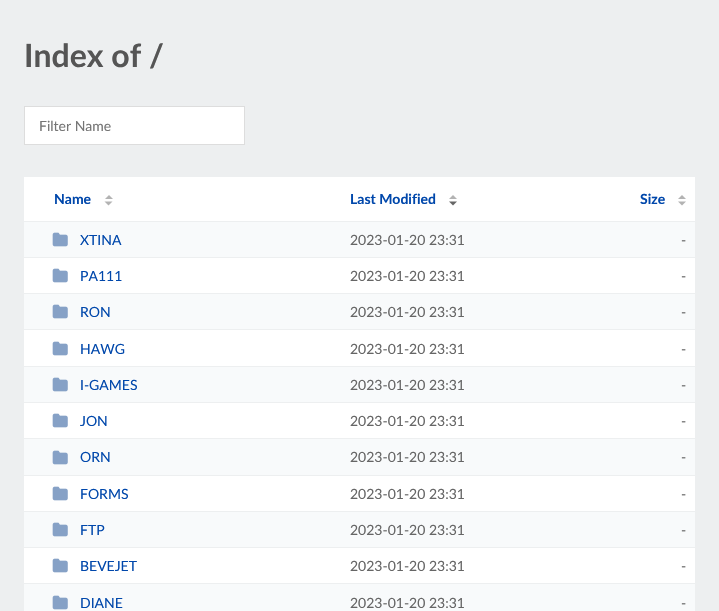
void draw(SkCanvas* canvas) {
    SkPaint paint;
    paint.setAntiAlias(true);
    auto face = [&](const char* family, int weight, float size, bool italic = false) {
        SkFontStyle style(weight, SkFontStyle::kNormal_Width,
            italic ? SkFontStyle::kItalic_Slant : SkFontStyle::kUpright_Slant);
        SkFont result(fontMgr->matchFamilyStyle(family, style), size);
        result.setSubpixel(true);
        return result;
    };
    auto write = [&](const char* s, float x, float y, const SkFont& font, SkColor color) {
        SkPaint ink(SkColor4f::FromColor(color));
        ink.setAntiAlias(true);
        canvas->drawString(s, x, y, font, ink);
    };
    auto block = [&](float x, float y, float w, float h, SkColor color) {
        SkPaint ink(SkColor4f::FromColor(color));
        ink.setAntiAlias(true);
        canvas->drawRect(SkRect::MakeXYWH(x, y, w, h), ink);
    };
    auto paste = [&](const char* path, float x, float y, float w, float h) {
        auto image = SkImages::DeferredFromEncodedData(SkData::MakeFromFileName(path));
        canvas->drawImageRect(image, SkRect::MakeXYWH(x, y, w, h), SkSamplingOptions());
    };
    canvas->clear(SkColorSetRGB(237, 239, 240));
    auto kFont1 = face("Lato", 700, 32);
    write("Index of /", 24, 67, kFont1, SkColorSetRGB(85, 85, 85));
    paint.setColor(SK_ColorWHITE);
    canvas->drawRect(SkRect::MakeXYWH(24.5f, 106.5f, 220, 38), paint);
    paint.setStyle(SkPaint::kStroke_Style);
    paint.setStrokeWidth(1);
    paint.setColor(SkColorSetRGB(221, 221, 221));
    canvas->drawRect(SkRect::MakeXYWH(24.5f, 106.5f, 220, 38), paint);
    auto kFont2 = face("Lato", 400, 14);
    write("Filter Name", 39, 131, kFont2, SkColorSetRGB(117, 117, 117));
    block(24, 177, 671, 406, SK_ColorWHITE);
    auto kFont3 = face("Lato", 700, 14);
    write("Name", 54, 204, kFont3, SkColorSetRGB(0, 71, 171));
    paint.setStyle(SkPaint::kFill_Style);
    paint.setColor(SkColorSetRGB(179, 179, 179));
    canvas->drawPath(SkPathBuilder().moveTo(113, 199).lineTo(105, 199).lineTo(109, 195).close().moveTo(104.5f, 201.5f).lineTo(112.5f, 201.5f).lineTo(108.5f, 205.5f).close().detach(), paint);
    write("Last Modified", 350, 204, kFont3, SkColorSetRGB(0, 71, 171));
    canvas->drawPath(SkPathBuilder().moveTo(457, 199).lineTo(449, 199).lineTo(453, 195).close().detach(), paint);
    paint.setColor(SkColorSetRGB(102, 102, 102));
    canvas->drawPath(SkPathBuilder().moveTo(449, 201.5f).lineTo(457, 201.5f).lineTo(453, 205.5f).close().detach(), paint);
    write("Size", 640, 204, kFont3, SkColorSetRGB(0, 71, 171));
    paint.setColor(SkColorSetRGB(179, 179, 179));
    canvas->drawPath(SkPathBuilder().moveTo(686, 199).lineTo(678, 199).lineTo(682, 195).close().moveTo(678, 201.5f).lineTo(686, 201.5f).lineTo(682, 205.5f).close().detach(), paint);
    block(24, 222, 671, 35, SkColorSetRGB(248, 250, 251));
    block(24, 221, 671, 1, SkColorSetRGB(237, 239, 240));
    block(24, 257, 671, 1, SkColorSetRGB(237, 239, 240));
    paste("pic1.png", 52, 232, 16, 15);
    write("XTINA", 80, 245, kFont2, SkColorSetRGB(0, 71, 171));
    write("2023-01-20 23:31", 350, 245, kFont2, SkColorSetRGB(102, 102, 102));
    write("-", 681, 245, kFont2, SkColorSetRGB(102, 102, 102));
    paste("pic2.png", 52, 268, 16, 15);
    write("PA111", 80, 281, kFont2, SkColorSetRGB(0, 71, 171));
    write("2023-01-20 23:31", 350, 281, kFont2, SkColorSetRGB(102, 102, 102));
    write("-", 681, 281, kFont2, SkColorSetRGB(102, 102, 102));
    block(24, 294, 671, 35, SkColorSetRGB(248, 250, 251));
    block(24, 293, 671, 1, SkColorSetRGB(237, 239, 240));
    block(24, 329, 671, 1, SkColorSetRGB(237, 239, 240));
    paste("pic1.png", 52, 304, 16, 15);
    write("RON", 80, 317, kFont2, SkColorSetRGB(0, 71, 171));
    write("2023-01-20 23:31", 350, 317, kFont2, SkColorSetRGB(102, 102, 102));
    write("-", 681, 317, kFont2, SkColorSetRGB(102, 102, 102));
    paste("pic2.png", 52, 341, 16, 15);
    write("HAWG", 80, 354, kFont2, SkColorSetRGB(0, 71, 171));
    write("2023-01-20 23:31", 350, 354, kFont2, SkColorSetRGB(102, 102, 102));
    write("-", 681, 354, kFont2, SkColorSetRGB(102, 102, 102));
    block(24, 367, 671, 35, SkColorSetRGB(248, 250, 251));
    block(24, 366, 671, 1, SkColorSetRGB(237, 239, 240));
    block(24, 402, 671, 1, SkColorSetRGB(237, 239, 240));
    paste("pic1.png", 52, 377, 16, 15);
    write("I-GAMES", 80, 390, kFont2, SkColorSetRGB(0, 71, 171));
    write("2023-01-20 23:31", 350, 390, kFont2, SkColorSetRGB(102, 102, 102));
    write("-", 681, 390, kFont2, SkColorSetRGB(102, 102, 102));
    paste("pic2.png", 52, 413, 16, 15);
    write("JON", 80, 426, kFont2, SkColorSetRGB(0, 71, 171));
    write("2023-01-20 23:31", 350, 426, kFont2, SkColorSetRGB(102, 102, 102));
    write("-", 681, 426, kFont2, SkColorSetRGB(102, 102, 102));
    block(24, 439, 671, 36, SkColorSetRGB(248, 250, 251));
    block(24, 438, 671, 1, SkColorSetRGB(237, 239, 240));
    block(24, 475, 671, 1, SkColorSetRGB(237, 239, 240));
    paste("pic1.png", 52, 450, 16, 15);
    write("ORN", 80, 462, kFont2, SkColorSetRGB(0, 71, 171));
    write("2023-01-20 23:31", 350, 462, kFont2, SkColorSetRGB(102, 102, 102));
    write("-", 681, 462, kFont2, SkColorSetRGB(102, 102, 102));
    paste("pic2.png", 52, 486, 16, 15);
    write("FORMS", 80, 499, kFont2, SkColorSetRGB(0, 71, 171));
    write("2023-01-20 23:31", 350, 499, kFont2, SkColorSetRGB(102, 102, 102));
    write("-", 681, 499, kFont2, SkColorSetRGB(102, 102, 102));
    block(24, 512, 671, 35, SkColorSetRGB(248, 250, 251));
    block(24, 511, 671, 1, SkColorSetRGB(237, 239, 240));
    block(24, 547, 671, 1, SkColorSetRGB(237, 239, 240));
    paste("pic1.png", 52, 522, 16, 15);
    write("FTP", 80, 535, kFont2, SkColorSetRGB(0, 71, 171));
    write("2023-01-20 23:31", 350, 535, kFont2, SkColorSetRGB(102, 102, 102));
    write("-", 681, 535, kFont2, SkColorSetRGB(102, 102, 102));
    paste("pic2.png", 52, 558, 16, 15);
    write("BEVEJET", 80, 571, kFont2, SkColorSetRGB(0, 71, 171));
    write("2023-01-20 23:31", 350, 571, kFont2, SkColorSetRGB(102, 102, 102));
    write("-", 681, 571, kFont2, SkColorSetRGB(102, 102, 102));
    block(24, 584, 671, 27, SkColorSetRGB(248, 250, 251));
    paste("pic1.png", 52, 595, 16, 15);
    write("DIANE", 80, 608, kFont2, SkColorSetRGB(0, 71, 171));
    write("2023-01-20 23:31", 350, 608, kFont2, SkColorSetRGB(102, 102, 102));
    write("-", 681, 608, kFont2, SkColorSetRGB(102, 102, 102));
}
